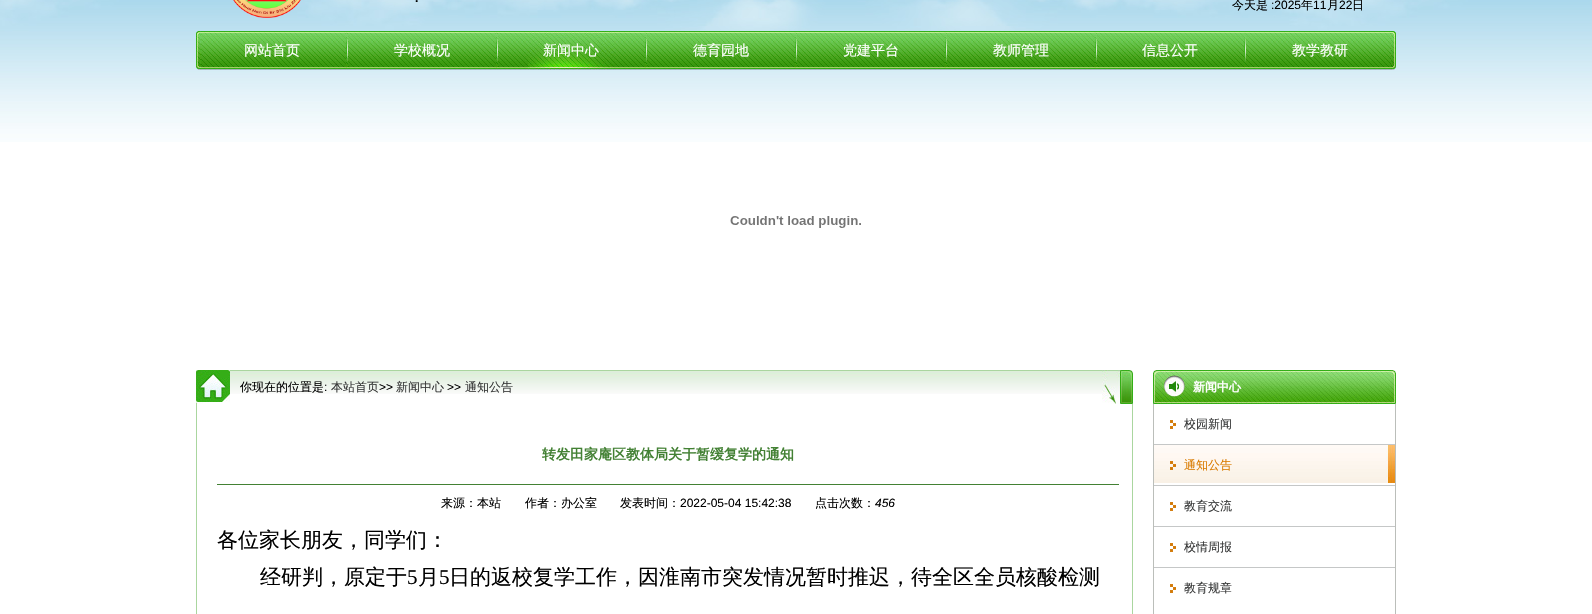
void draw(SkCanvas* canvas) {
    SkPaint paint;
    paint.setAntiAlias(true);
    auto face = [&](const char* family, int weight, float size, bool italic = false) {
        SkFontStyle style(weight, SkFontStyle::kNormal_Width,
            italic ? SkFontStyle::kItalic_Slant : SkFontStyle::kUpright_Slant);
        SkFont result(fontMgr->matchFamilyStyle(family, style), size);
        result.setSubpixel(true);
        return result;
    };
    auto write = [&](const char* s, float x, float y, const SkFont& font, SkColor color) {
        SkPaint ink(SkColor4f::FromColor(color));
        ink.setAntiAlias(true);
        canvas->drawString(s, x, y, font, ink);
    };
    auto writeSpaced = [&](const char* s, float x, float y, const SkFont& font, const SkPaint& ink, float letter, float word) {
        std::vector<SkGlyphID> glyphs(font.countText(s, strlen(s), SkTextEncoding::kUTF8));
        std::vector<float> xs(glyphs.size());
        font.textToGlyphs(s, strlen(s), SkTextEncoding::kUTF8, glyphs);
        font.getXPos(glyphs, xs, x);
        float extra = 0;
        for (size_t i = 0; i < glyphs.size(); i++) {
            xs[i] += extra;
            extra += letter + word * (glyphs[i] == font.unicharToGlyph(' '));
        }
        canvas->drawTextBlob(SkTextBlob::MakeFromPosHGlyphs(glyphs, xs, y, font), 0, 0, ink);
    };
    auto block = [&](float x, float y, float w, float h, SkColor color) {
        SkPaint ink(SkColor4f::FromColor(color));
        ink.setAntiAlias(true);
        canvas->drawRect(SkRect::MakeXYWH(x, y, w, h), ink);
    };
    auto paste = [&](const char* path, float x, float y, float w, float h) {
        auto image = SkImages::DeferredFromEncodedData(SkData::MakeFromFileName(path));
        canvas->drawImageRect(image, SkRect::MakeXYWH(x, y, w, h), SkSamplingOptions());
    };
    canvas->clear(SK_ColorWHITE);
    paste("pic1.png", 0, 0, 1592, 142);
    paste("pic2.png", 233, 0, 68, 18);
    auto kFont1 = face("Liberation Sans", 700, 12);
    paint.setColor(SK_ColorBLACK);
    writeSpaced(".", 415, 2, kFont1, paint, 2, 0);
    auto kFont2 = face("WenQuanYi Zen Hei", 500, 12);
    write("今天是", 1232, 9, kFont2, SK_ColorBLACK);
    auto kFont3 = face("Liberation Sans", 400, 12);
    write(":2025", 1271, 9, kFont3, SK_ColorBLACK);
    write("年", 1301, 9, kFont2, SK_ColorBLACK);
    write("11", 1313, 9, kFont3, SK_ColorBLACK);
    write("月", 1327, 9, kFont2, SK_ColorBLACK);
    write("22", 1339, 9, kFont3, SK_ColorBLACK);
    write("日", 1352, 9, kFont2, SK_ColorBLACK);
    paste("pic3.png", 201, 31, 1190, 39);
    paste("pic4.png", 196, 31, 5, 39);
    auto kFont4 = face("WenQuanYi Zen Hei", 500, 14);
    write("网站首页", 244, 55, kFont4, SK_ColorWHITE);
    paste("pic5.png", 346, 32, 2, 38);
    write("学校概况", 394, 55, kFont4, SK_ColorWHITE);
    paste("pic5.png", 496, 32, 2, 38);
    paste("pic6.png", 528, 31, 86, 39);
    write("新闻中心", 543, 55, kFont4, SK_ColorWHITE);
    paste("pic7.png", 645, 31, 2, 39);
    write("德育园地", 693, 55, kFont4, SK_ColorWHITE);
    paste("pic7.png", 795, 31, 2, 39);
    write("党建平台", 843, 55, kFont4, SK_ColorWHITE);
    paste("pic7.png", 945, 31, 2, 39);
    write("教师管理", 993, 55, kFont4, SK_ColorWHITE);
    paste("pic7.png", 1095, 31, 2, 39);
    write("信息公开", 1142, 55, kFont4, SK_ColorWHITE);
    paste("pic7.png", 1244, 31, 2, 39);
    write("教学教研", 1292, 55, kFont4, SK_ColorWHITE);
    paste("pic8.png", 1391, 31, 5, 39);
    paste("pic9.png", 730, 216, 131, 12);
    paste("pic10.png", 230, 370, 872, 24);
    paste("pic11.png", 196, 370, 34, 34);
    write("你现在的位置是", 240, 391, kFont2, SK_ColorBLACK);
    write(":", 324, 391, kFont3, SK_ColorBLACK);
    write("本站首页", 331, 391, kFont2, SkColorSetRGB(54, 55, 55));
    write(">>", 379, 391, kFont3, SK_ColorBLACK);
    write("新闻中心", 396, 391, kFont2, SkColorSetRGB(54, 55, 55));
    write(">>", 447, 391, kFont3, SK_ColorBLACK);
    write("通知公告", 465, 391, kFont2, SkColorSetRGB(54, 55, 55));
    paste("pic12.png", 1102, 370, 31, 34);
    block(1132, 404, 1, 210, SkColorSetRGB(170, 214, 159));
    block(196, 404, 1, 210, SkColorSetRGB(170, 214, 159));
    block(217, 484, 902, 1, SkColorSetRGB(67, 129, 52));
    auto kFont5 = face("WenQuanYi Zen Hei", 700, 14);
    write("转发田家庵区教体局关于暂缓复学的通知", 542, 459, kFont5, SkColorSetRGB(67, 129, 52));
    write("来源：本站", 441, 507, kFont2, SK_ColorBLACK);
    write("作者：办公室", 525, 507, kFont2, SK_ColorBLACK);
    write("发表时间：", 620, 507, kFont2, SK_ColorBLACK);
    write("2022-05-04 15:42:38", 680, 507, kFont3, SK_ColorBLACK);
    write("点击次数：", 815, 507, kFont2, SK_ColorBLACK);
    auto kFont6 = face("Liberation Sans", 400, 12, true);
    write("456", 875, 507, kFont6, SK_ColorBLACK);
    auto kFont7 = face("WenQuanYi Zen Hei", 500, 21);
    write("各位家长朋友，同学们：", 217, 547, kFont7, SK_ColorBLACK);
    write("经研判，原定于", 260, 584, kFont7, SK_ColorBLACK);
    auto kFont8 = face("Liberation Serif", 400, 21);
    write("5", 407, 584, kFont8, SK_ColorBLACK);
    write("月", 418, 584, kFont7, SK_ColorBLACK);
    write("5", 439, 584, kFont8, SK_ColorBLACK);
    write("日的返校复学工作，因淮南市突发情况暂时推迟，待全区全员核酸检测", 449, 584, kFont7, SK_ColorBLACK);
    paste("pic13.png", 1153, 370, 243, 34);
    auto kFont9 = face("WenQuanYi Zen Hei", 700, 12);
    write("新闻中心", 1193, 391, kFont9, SK_ColorWHITE);
    block(1395, 404, 1, 210, SkColorSetRGB(187, 190, 186));
    block(1153, 404, 1, 210, SkColorSetRGB(187, 190, 186));
    paste("pic14.png", 1170, 420, 6, 9);
    write("校园新闻", 1184, 428, kFont2, SkColorSetRGB(54, 55, 55));
    paste("pic15.png", 1154, 445, 241, 38);
    block(1154, 444, 241, 1, SkColorSetRGB(197, 199, 199));
    paste("pic16.png", 1170, 461, 6, 9);
    write("通知公告", 1184, 469, kFont2, SkColorSetRGB(218, 123, 0));
    block(1154, 485, 241, 1, SkColorSetRGB(197, 199, 199));
    paste("pic14.png", 1170, 502, 6, 9);
    write("教育交流", 1184, 510, kFont2, SkColorSetRGB(54, 55, 55));
    block(1154, 526, 241, 1, SkColorSetRGB(197, 199, 199));
    paste("pic14.png", 1170, 543, 6, 9);
    write("校情周报", 1184, 551, kFont2, SkColorSetRGB(54, 55, 55));
    block(1154, 567, 241, 1, SkColorSetRGB(197, 199, 199));
    paste("pic14.png", 1170, 584, 6, 9);
    write("教育规章", 1184, 592, kFont2, SkColorSetRGB(54, 55, 55));
}
